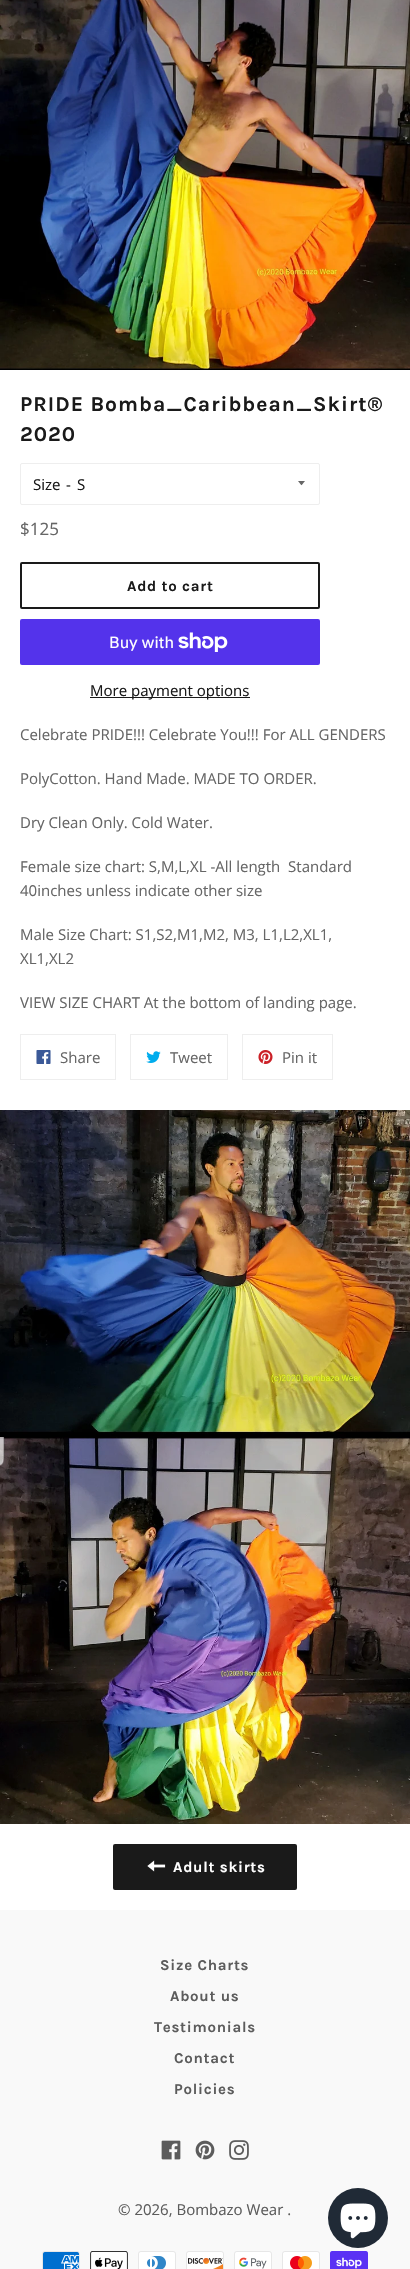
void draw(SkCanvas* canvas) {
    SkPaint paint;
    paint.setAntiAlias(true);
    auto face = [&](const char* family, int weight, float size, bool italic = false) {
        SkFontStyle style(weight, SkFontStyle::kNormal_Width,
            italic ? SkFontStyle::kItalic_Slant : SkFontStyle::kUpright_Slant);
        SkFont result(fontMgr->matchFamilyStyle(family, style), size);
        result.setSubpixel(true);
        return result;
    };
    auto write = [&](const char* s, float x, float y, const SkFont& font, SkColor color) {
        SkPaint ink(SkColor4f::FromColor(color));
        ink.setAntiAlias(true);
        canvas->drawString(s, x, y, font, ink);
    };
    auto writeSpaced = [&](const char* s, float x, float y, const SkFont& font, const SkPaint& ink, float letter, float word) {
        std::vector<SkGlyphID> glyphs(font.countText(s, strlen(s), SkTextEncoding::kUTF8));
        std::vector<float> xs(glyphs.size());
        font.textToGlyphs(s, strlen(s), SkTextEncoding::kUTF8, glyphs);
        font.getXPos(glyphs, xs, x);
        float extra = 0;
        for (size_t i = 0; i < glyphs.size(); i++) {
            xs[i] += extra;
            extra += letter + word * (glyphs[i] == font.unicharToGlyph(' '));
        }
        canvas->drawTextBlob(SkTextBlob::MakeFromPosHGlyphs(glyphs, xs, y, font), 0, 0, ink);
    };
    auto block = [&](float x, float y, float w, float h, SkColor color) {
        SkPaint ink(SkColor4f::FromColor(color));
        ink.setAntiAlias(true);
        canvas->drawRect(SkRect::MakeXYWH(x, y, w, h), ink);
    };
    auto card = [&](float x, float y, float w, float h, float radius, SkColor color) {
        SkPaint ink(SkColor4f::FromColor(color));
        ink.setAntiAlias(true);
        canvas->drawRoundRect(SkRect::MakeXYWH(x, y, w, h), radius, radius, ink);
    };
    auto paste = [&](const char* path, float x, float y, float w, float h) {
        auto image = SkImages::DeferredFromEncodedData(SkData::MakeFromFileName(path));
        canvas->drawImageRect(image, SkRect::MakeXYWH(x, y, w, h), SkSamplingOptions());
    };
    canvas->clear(SK_ColorWHITE);
    paste("pic1.png", 0, 0, 410, 370);
    auto kFont1 = face("Karla", 700, 21);
    paint.setColor(SkColorSetRGB(26, 26, 26));
    writeSpaced("PRIDE Bomba_Caribbean_Skirt®", 20, 411, kFont1, paint, 1.05f, 0);
    writeSpaced("2020", 20, 441, kFont1, paint, 1.05f, 0);
    paint.setStyle(SkPaint::kStroke_Style);
    paint.setStrokeWidth(1);
    paint.setColor(SkColorSetRGB(238, 238, 238));
    canvas->drawRoundRect(SkRect::MakeXYWH(20.5f, 463.5f, 299, 41), 1.5f, 1.5f, paint);
    auto kFont2 = face("Open Sans", 400, 15);
    write("Size", 33, 490, kFont2, SkColorSetRGB(26, 26, 26));
    write("-", 66, 490, kFont2, SkColorSetRGB(26, 26, 26));
    paint.setStyle(SkPaint::kFill_Style);
    paint.setColor(SkColorSetRGB(102, 102, 102));
    canvas->drawPath(SkPathBuilder().moveTo(298, 481).cubicTo(302.5f, 486.5f, 300.5f, 486.5f, 305, 481).close().detach(), paint);
    write("S", 77, 490, kFont2, SkColorSetRGB(26, 26, 26));
    auto kFont3 = face("Open Sans", 400, 17);
    write("$125", 20, 535, kFont3, SkColorSetRGB(102, 102, 102));
    paint.setStyle(SkPaint::kStroke_Style);
    paint.setStrokeWidth(2);
    paint.setColor(SkColorSetRGB(26, 26, 26));
    canvas->drawRoundRect(SkRect::MakeXYWH(21, 563, 298, 45), 1, 1, paint);
    auto kFont4 = face("Karla", 700, 15);
    paint.setStyle(SkPaint::kFill_Style);
    writeSpaced("Add to cart", 127, 591, kFont4, paint, 0.75f, 0);
    card(20, 619, 300, 46, 2, SkColorSetRGB(84, 51, 235));
    auto kFont5 = face("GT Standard", 400, 16);
    write("Buy with", 109, 648, kFont5, SK_ColorWHITE);
    paste("pic2.png", 178, 632, 50, 20);
    block(90, 697, 160, 1, SkColorSetRGB(26, 26, 26));
    write("More payment options", 90, 696, kFont2, SkColorSetRGB(26, 26, 26));
    write("Celebrate PRIDE!!! Celebrate You!!! For ALL GENDERS", 20, 740, kFont2, SkColorSetRGB(102, 102, 102));
    write("PolyCotton. Hand Made. MADE TO ORDER.", 20, 784, kFont2, SkColorSetRGB(102, 102, 102));
    write("Dry Clean Only. Cold Water.", 20, 828, kFont2, SkColorSetRGB(102, 102, 102));
    write("Female size chart: S,M,L,XL -All length  Standard", 20, 872, kFont2, SkColorSetRGB(102, 102, 102));
    write("40inches unless indicate other size", 20, 896, kFont2, SkColorSetRGB(102, 102, 102));
    write("Male Size Chart: S1,S2,M1,M2, M3, L1,L2,XL1,", 20, 940, kFont2, SkColorSetRGB(102, 102, 102));
    write("XL1,XL2", 20, 964, kFont2, SkColorSetRGB(102, 102, 102));
    write("VIEW SIZE CHART At the bottom of landing page.", 20, 1008, kFont2, SkColorSetRGB(102, 102, 102));
    paint.setStyle(SkPaint::kStroke_Style);
    paint.setStrokeWidth(1);
    paint.setColor(SkColorSetRGB(238, 238, 238));
    canvas->drawRect(SkRect::MakeXYWH(20.5f, 1034.5f, 95, 45), paint);
    paste("pic3.png", 36, 1050, 15, 14);
    write("Share", 60, 1063, kFont2, SkColorSetRGB(102, 102, 102));
    canvas->drawRect(SkRect::MakeXYWH(130.5f, 1034.5f, 97, 45), paint);
    paste("pic4.png", 146, 1051, 15, 12);
    write("Tweet", 170, 1063, kFont2, SkColorSetRGB(102, 102, 102));
    canvas->drawRect(SkRect::MakeXYWH(242.5f, 1034.5f, 90, 45), paint);
    paste("pic5.png", 258, 1050, 15, 14);
    write("Pin it", 282, 1063, kFont2, SkColorSetRGB(102, 102, 102));
    paste("pic6.png", 0, 1110, 410, 327);
    paste("pic7.png", 0, 1437, 410, 387);
    card(113, 1844, 184, 46, 2, SkColorSetRGB(26, 26, 26));
    paste("pic8.png", 147, 1860, 19, 12);
    paint.setStyle(SkPaint::kFill_Style);
    paint.setColor(SK_ColorWHITE);
    writeSpaced("Adult skirts", 173, 1872, kFont4, paint, 0.75f, 0);
    block(0, 1910, 410, 359, SkColorSetRGB(249, 249, 249));
    paint.setColor(SkColorSetRGB(92, 92, 92));
    writeSpaced("Size Charts", 160, 1970, kFont4, paint, 0.75f, 0);
    writeSpaced("About us", 170, 2001, kFont4, paint, 0.75f, 0);
    writeSpaced("Testimonials", 154, 2032, kFont4, paint, 0.75f, 0);
    writeSpaced("Contact", 174, 2063, kFont4, paint, 0.75f, 0);
    writeSpaced("Policies", 174, 2094, kFont4, paint, 0.75f, 0);
    paste("pic9.png", 161, 2140, 20, 20);
    paste("pic10.png", 195, 2140, 20, 20);
    paste("pic11.png", 229, 2140, 20, 20);
    write("© 2026, Bombazo Wear .", 118, 2215, kFont2, SkColorSetRGB(92, 92, 92));
    paste("pic12.png", 42, 2251, 38, 18);
    paste("pic13.png", 90, 2251, 38, 18);
    paste("pic14.png", 138, 2251, 38, 18);
    paste("pic15.png", 186, 2251, 38, 18);
    paste("pic16.png", 234, 2251, 38, 18);
    paste("pic17.png", 282, 2251, 38, 18);
    paste("pic18.png", 330, 2251, 38, 18);
    paint.setColor(SkColorSetRGB(32, 42, 54));
    canvas->drawCircle(358, 2218, 30, paint);
    paste("pic19.png", 340, 2203, 36, 36);
}
